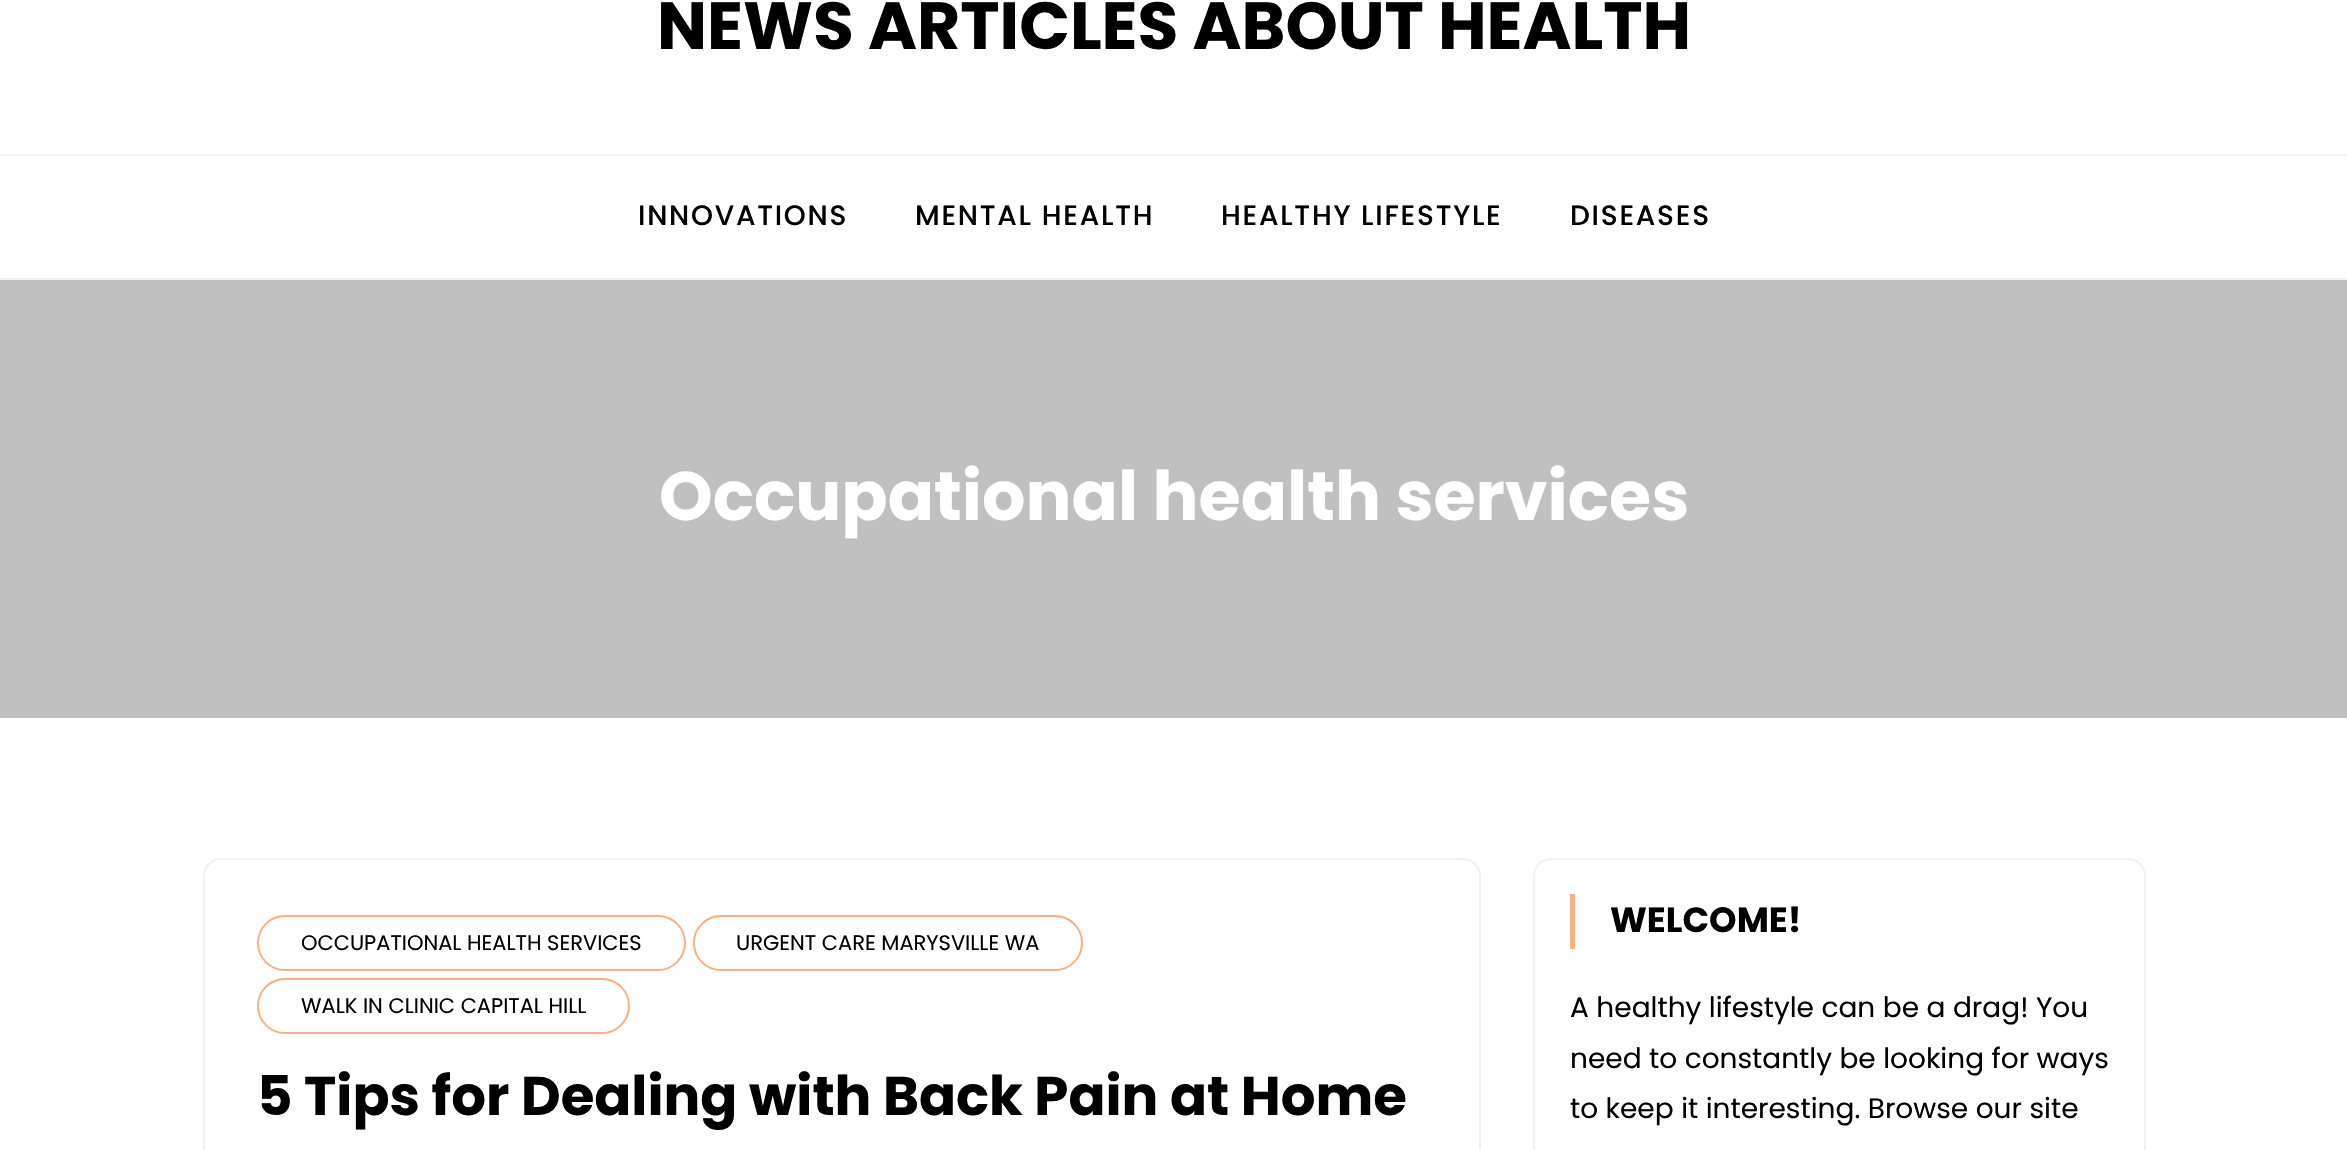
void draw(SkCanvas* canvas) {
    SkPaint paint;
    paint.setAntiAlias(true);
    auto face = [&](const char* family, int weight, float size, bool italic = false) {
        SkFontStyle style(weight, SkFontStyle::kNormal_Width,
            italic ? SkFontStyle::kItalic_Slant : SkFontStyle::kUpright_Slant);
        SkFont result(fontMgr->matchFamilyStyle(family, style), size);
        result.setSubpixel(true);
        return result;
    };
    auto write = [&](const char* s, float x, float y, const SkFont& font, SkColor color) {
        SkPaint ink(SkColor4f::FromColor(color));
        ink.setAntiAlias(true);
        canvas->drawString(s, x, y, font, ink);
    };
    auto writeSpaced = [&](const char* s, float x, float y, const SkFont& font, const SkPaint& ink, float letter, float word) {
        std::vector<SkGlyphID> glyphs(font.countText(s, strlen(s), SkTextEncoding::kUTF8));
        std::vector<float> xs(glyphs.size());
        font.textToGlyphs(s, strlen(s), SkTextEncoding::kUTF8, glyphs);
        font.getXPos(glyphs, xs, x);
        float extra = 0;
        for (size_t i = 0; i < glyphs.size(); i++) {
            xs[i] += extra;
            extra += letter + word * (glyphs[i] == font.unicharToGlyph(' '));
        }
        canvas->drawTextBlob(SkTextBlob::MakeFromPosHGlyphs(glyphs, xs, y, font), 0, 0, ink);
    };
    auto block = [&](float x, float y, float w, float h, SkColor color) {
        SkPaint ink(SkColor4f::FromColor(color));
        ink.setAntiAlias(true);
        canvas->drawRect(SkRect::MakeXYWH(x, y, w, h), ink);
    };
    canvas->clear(SK_ColorWHITE);
    auto kFont1 = face("Poppins", 700, 66.5f);
    write("NEWS ARTICLES ABOUT HEALTH", 657, 49, kFont1, SK_ColorBLACK);
    block(0, 154, 2347, 2, SkColorSetRGB(241, 241, 241));
    block(0, 278, 2347, 2, SkColorSetRGB(241, 241, 241));
    auto kFont2 = face("Poppins", 500, 28);
    paint.setColor(SK_ColorBLACK);
    writeSpaced("INNOVATIONS", 638, 225, kFont2, paint, 1.75f, 0);
    writeSpaced("MENTAL HEALTH", 915, 225, kFont2, paint, 1.75f, 0);
    writeSpaced("HEALTHY LIFESTYLE", 1221, 225, kFont2, paint, 1.75f, 0);
    writeSpaced("DISEASES", 1570, 225, kFont2, paint, 1.75f, 0);
    block(0, 280, 2347, 438, SkColorSetRGB(192, 192, 192));
    auto kFont3 = face("Poppins", 700, 68.3f);
    write("Occupational health services", 659, 520, kFont3, SK_ColorWHITE);
    paint.setStyle(SkPaint::kStroke_Style);
    paint.setStrokeWidth(2);
    paint.setColor(SkColorSetRGB(241, 241, 241));
    canvas->drawRoundRect(SkRect::MakeXYWH(204, 859, 1276, 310), 17, 17, paint);
    paint.setColor(SkColorSetRGB(248, 175, 134));
    canvas->drawRoundRect(SkRect::MakeXYWH(258, 916, 427, 54), 27, 27, paint);
    auto kFont4 = face("Poppins", 400, 21);
    write("OCCUPATIONAL HEALTH SERVICES", 301, 950, kFont4, SK_ColorBLACK);
    canvas->drawRoundRect(SkRect::MakeXYWH(694, 916, 388, 54), 27, 27, paint);
    write("URGENT CARE MARYSVILLE WA", 736, 950, kFont4, SK_ColorBLACK);
    canvas->drawRoundRect(SkRect::MakeXYWH(258, 979, 371, 54), 27, 27, paint);
    write("WALK IN CLINIC CAPITAL HILL", 301, 1013, kFont4, SK_ColorBLACK);
    auto kFont5 = face("Poppins", 700, 54.6f);
    write("5 Tips for Dealing with Back Pain at Home", 257, 1115, kFont5, SK_ColorBLACK);
    paint.setColor(SkColorSetRGB(241, 241, 241));
    canvas->drawRoundRect(SkRect::MakeXYWH(1534, 859, 611, 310), 17, 17, paint);
    block(1570, 894, 5, 55, SkColorSetRGB(248, 175, 134));
    auto kFont6 = face("Poppins", 700, 35);
    write("WELCOME!", 1610, 932, kFont6, SK_ColorBLACK);
    auto kFont7 = face("Poppins", 400, 28);
    write("A healthy lifestyle can be a drag! You", 1570, 1017, kFont7, SK_ColorBLACK);
    write("need to constantly be looking for ways", 1570, 1068, kFont7, SK_ColorBLACK);
    write("to keep it interesting. Browse our site", 1570, 1118, kFont7, SK_ColorBLACK);
}
